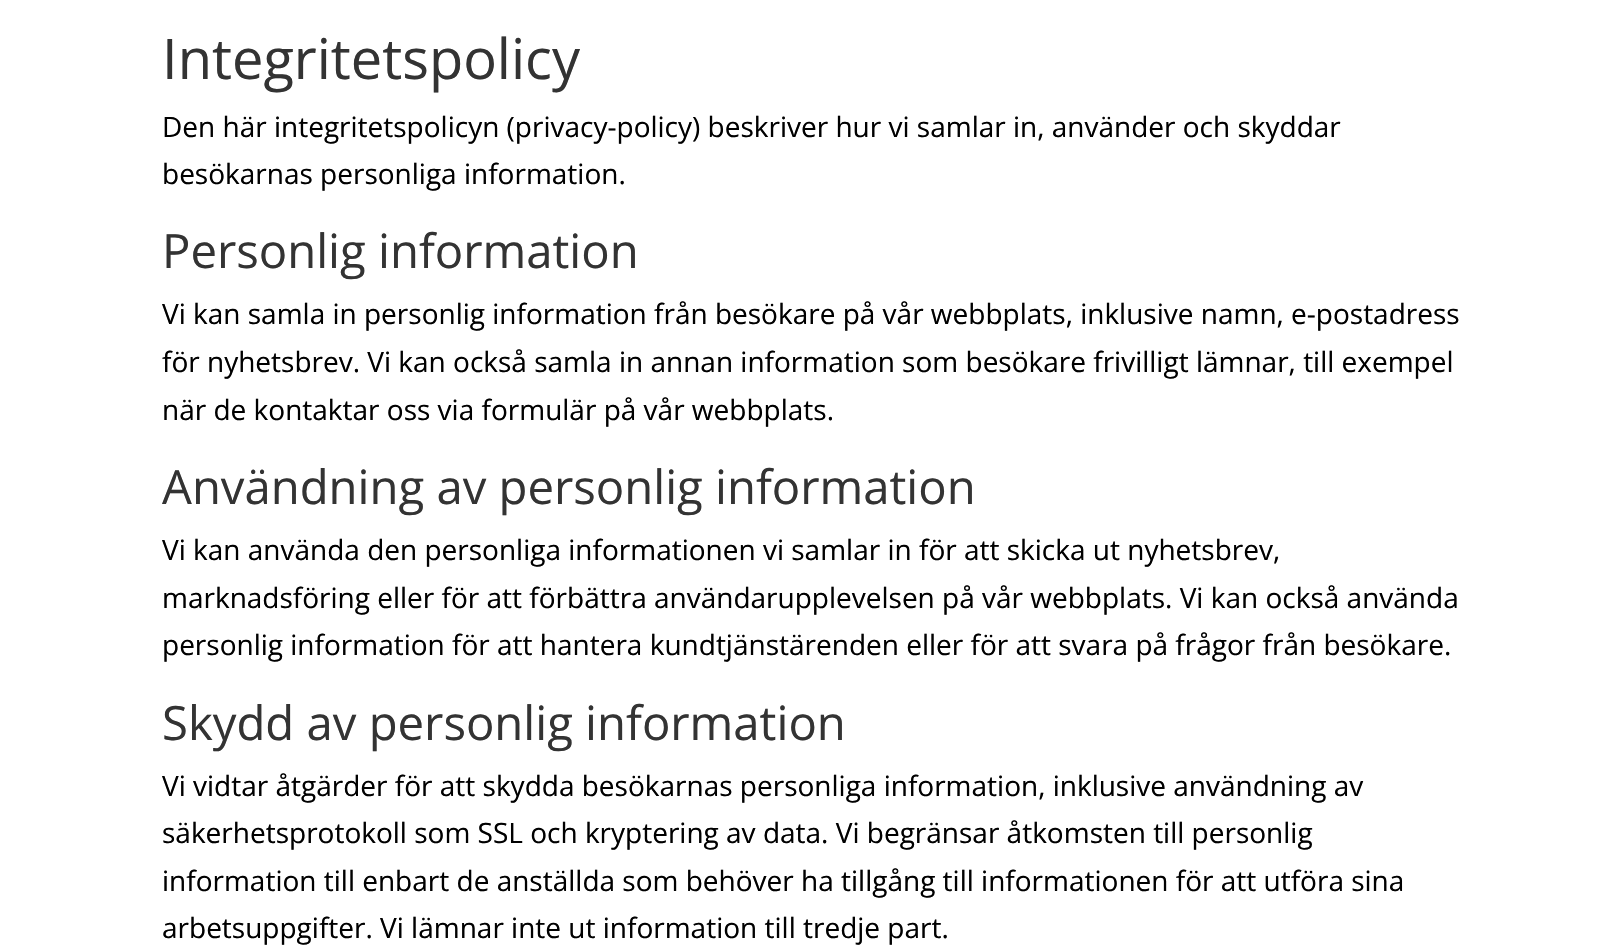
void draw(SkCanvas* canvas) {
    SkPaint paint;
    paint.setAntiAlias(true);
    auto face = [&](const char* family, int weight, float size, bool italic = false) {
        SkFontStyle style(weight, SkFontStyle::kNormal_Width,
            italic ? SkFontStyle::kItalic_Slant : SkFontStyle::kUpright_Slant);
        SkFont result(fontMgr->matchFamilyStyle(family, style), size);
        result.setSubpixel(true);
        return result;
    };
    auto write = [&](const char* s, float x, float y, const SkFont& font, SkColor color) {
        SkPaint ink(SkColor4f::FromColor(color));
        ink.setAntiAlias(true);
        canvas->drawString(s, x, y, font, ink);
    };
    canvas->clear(SK_ColorWHITE);
    auto kFont1 = face("Open Sans", 400, 56);
    write("Integritetspolicy", 162, 79, kFont1, SkColorSetRGB(51, 51, 51));
    auto kFont2 = face("Open Sans", 400, 28);
    write("Den här integritetspolicyn (privacy-policy) beskriver hur vi samlar in, använder och skyddar", 162, 137, kFont2, SK_ColorBLACK);
    write("besökarnas personliga information.", 162, 184, kFont2, SK_ColorBLACK);
    auto kFont3 = face("Open Sans", 400, 47.25f);
    write("Personlig information", 162, 268, kFont3, SkColorSetRGB(51, 51, 51));
    write("Vi kan samla in personlig information från besökare på vår webbplats, inklusive namn, e-postadress", 162, 324, kFont2, SK_ColorBLACK);
    write("för nyhetsbrev. Vi kan också samla in annan information som besökare frivilligt lämnar, till exempel", 162, 372, kFont2, SK_ColorBLACK);
    write("när de kontaktar oss via formulär på vår webbplats.", 162, 420, kFont2, SK_ColorBLACK);
    write("Användning av personlig information", 162, 504, kFont3, SkColorSetRGB(51, 51, 51));
    write("Vi kan använda den personliga informationen vi samlar in för att skicka ut nyhetsbrev,", 162, 560, kFont2, SK_ColorBLACK);
    write("marknadsföring eller för att förbättra användarupplevelsen på vår webbplats. Vi kan också använda", 162, 608, kFont2, SK_ColorBLACK);
    write("personlig information för att hantera kundtjänstärenden eller för att svara på frågor från besökare.", 162, 655, kFont2, SK_ColorBLACK);
    write("Skydd av personlig information", 162, 740, kFont3, SkColorSetRGB(51, 51, 51));
    write("Vi vidtar åtgärder för att skydda besökarnas personliga information, inklusive användning av", 162, 796, kFont2, SK_ColorBLACK);
    write("säkerhetsprotokoll som SSL och kryptering av data. Vi begränsar åtkomsten till personlig", 162, 843, kFont2, SK_ColorBLACK);
    write("information till enbart de anställda som behöver ha tillgång till informationen för att utföra sina", 162, 891, kFont2, SK_ColorBLACK);
    write("arbetsuppgifter. Vi lämnar inte ut information till tredje part.", 162, 938, kFont2, SK_ColorBLACK);
}
